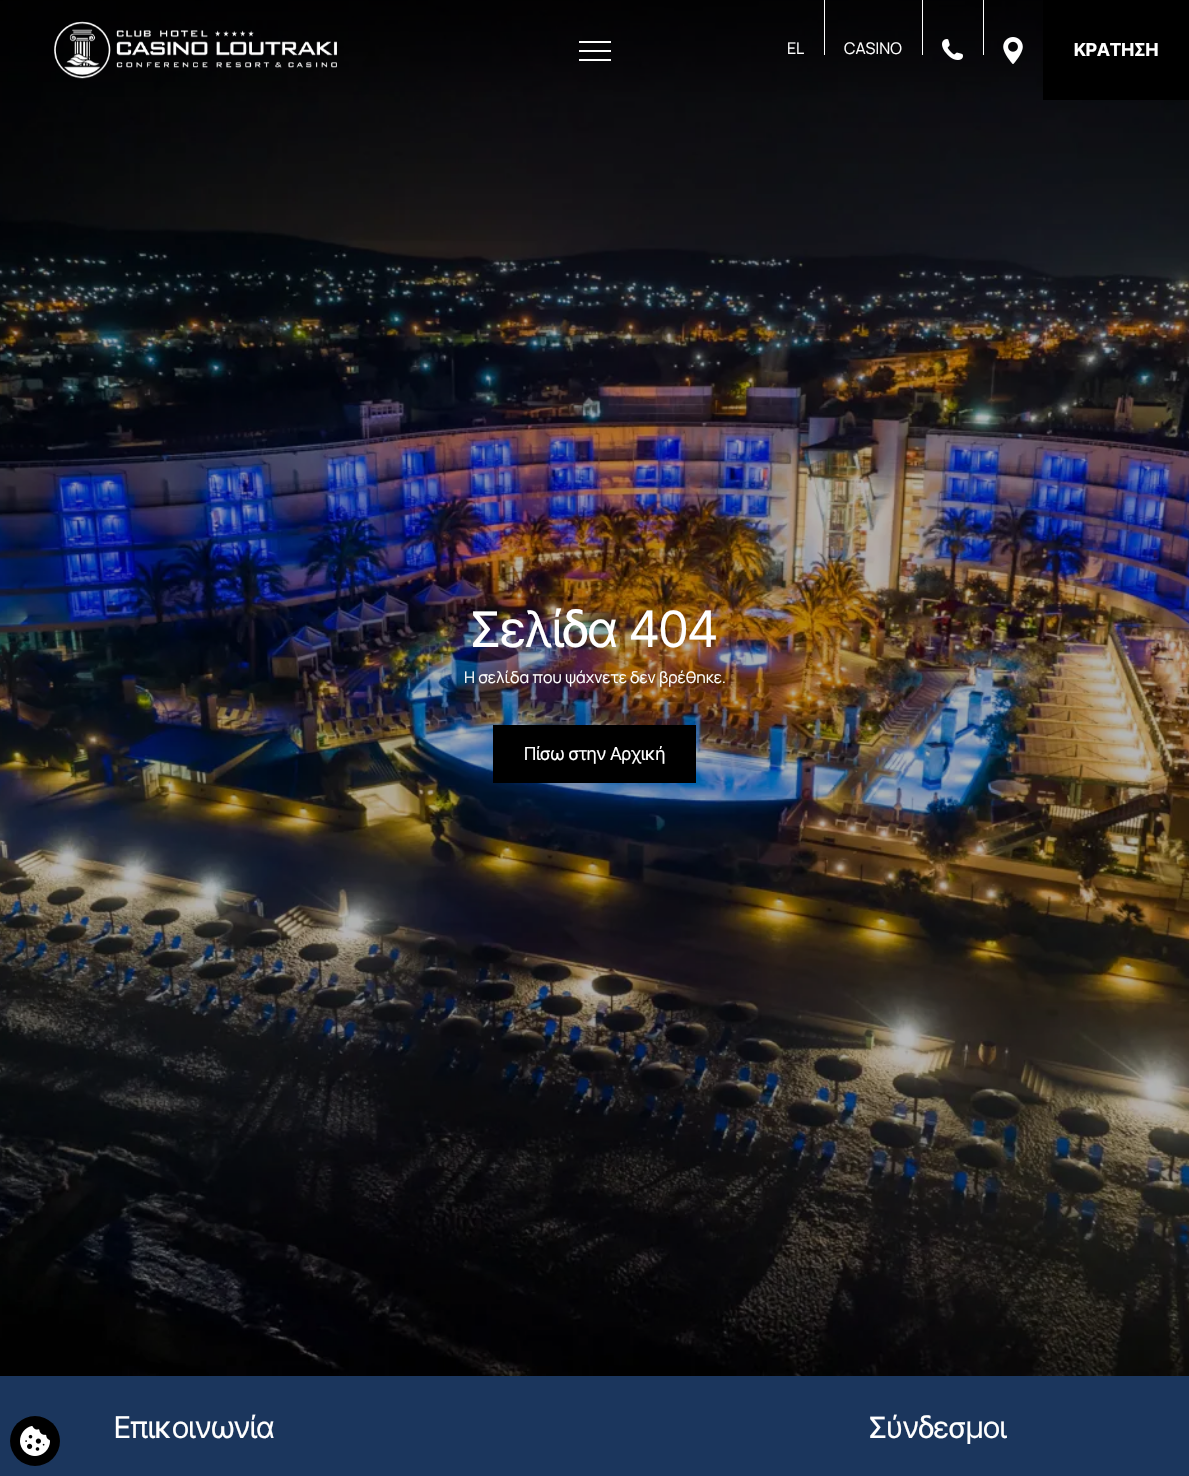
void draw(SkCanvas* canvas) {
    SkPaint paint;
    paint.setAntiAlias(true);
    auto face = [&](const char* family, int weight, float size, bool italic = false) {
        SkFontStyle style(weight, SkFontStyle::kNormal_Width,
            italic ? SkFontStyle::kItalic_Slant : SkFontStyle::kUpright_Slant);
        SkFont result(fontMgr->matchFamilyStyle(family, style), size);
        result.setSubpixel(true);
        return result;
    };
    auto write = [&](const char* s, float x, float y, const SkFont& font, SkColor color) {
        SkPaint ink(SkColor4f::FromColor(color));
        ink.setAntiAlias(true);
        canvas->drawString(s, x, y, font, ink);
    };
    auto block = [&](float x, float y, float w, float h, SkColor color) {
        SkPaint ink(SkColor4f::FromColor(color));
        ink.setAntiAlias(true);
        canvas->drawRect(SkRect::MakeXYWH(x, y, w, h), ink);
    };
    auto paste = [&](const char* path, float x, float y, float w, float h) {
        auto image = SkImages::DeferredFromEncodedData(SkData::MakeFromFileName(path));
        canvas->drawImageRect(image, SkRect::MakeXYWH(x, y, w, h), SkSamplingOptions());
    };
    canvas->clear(SkColorSetRGB(27, 54, 93));
    paint.setColor(SK_ColorBLACK);
    canvas->drawCircle(35, 1441, 25, paint);
    paste("pic1.png", 20, 1426, 30, 30);
    paste("pic5.png", 0, 0, 1189, 1376);
    paste("pic2.png", 54, 21, 283, 58);
    block(579, 50, 32, 2, SK_ColorWHITE);
    block(579, 41, 32, 2, SK_ColorWHITE);
    block(579, 59, 32, 2, SK_ColorWHITE);
    auto kFont1 = face("Manrope", 400, 16);
    write("EL", 787, 54, kFont1, SK_ColorWHITE);
    block(824, 0, 1, 55, SK_ColorWHITE);
    write("CASINO", 844, 54, kFont1, SK_ColorWHITE);
    block(922, 0, 1, 55, SK_ColorWHITE);
    paste("pic3.png", 942, 39, 21, 21);
    block(983, 0, 1, 55, SK_ColorWHITE);
    paste("pic4.png", 1003, 37, 20, 27);
    block(1043, 0, 146, 100, SK_ColorBLACK);
    auto kFont2 = face("Inter Tight", 700, 18);
    write("ΚΡΑΤΗΣΗ", 1074, 56, kFont2, SK_ColorWHITE);
    auto kFont3 = face("Inter Tight", 400, 50);
    write("Σελίδα 404", 471, 647, kFont3, SK_ColorWHITE);
    write("Η σελίδα που ψάχνετε δεν βρέθηκε.", 464, 683, kFont1, SK_ColorWHITE);
    block(493, 725, 203, 58, SK_ColorBLACK);
    auto kFont4 = face("Inter Tight", 400, 18);
    write("Πίσω στην Αρχική", 524, 760, kFont4, SK_ColorWHITE);
    auto kFont5 = face("Inter Tight", 400, 30);
    write("Επικοινωνία", 114, 1438, kFont5, SK_ColorWHITE);
    write("Σύνδεσμοι", 869, 1438, kFont5, SK_ColorWHITE);
}
